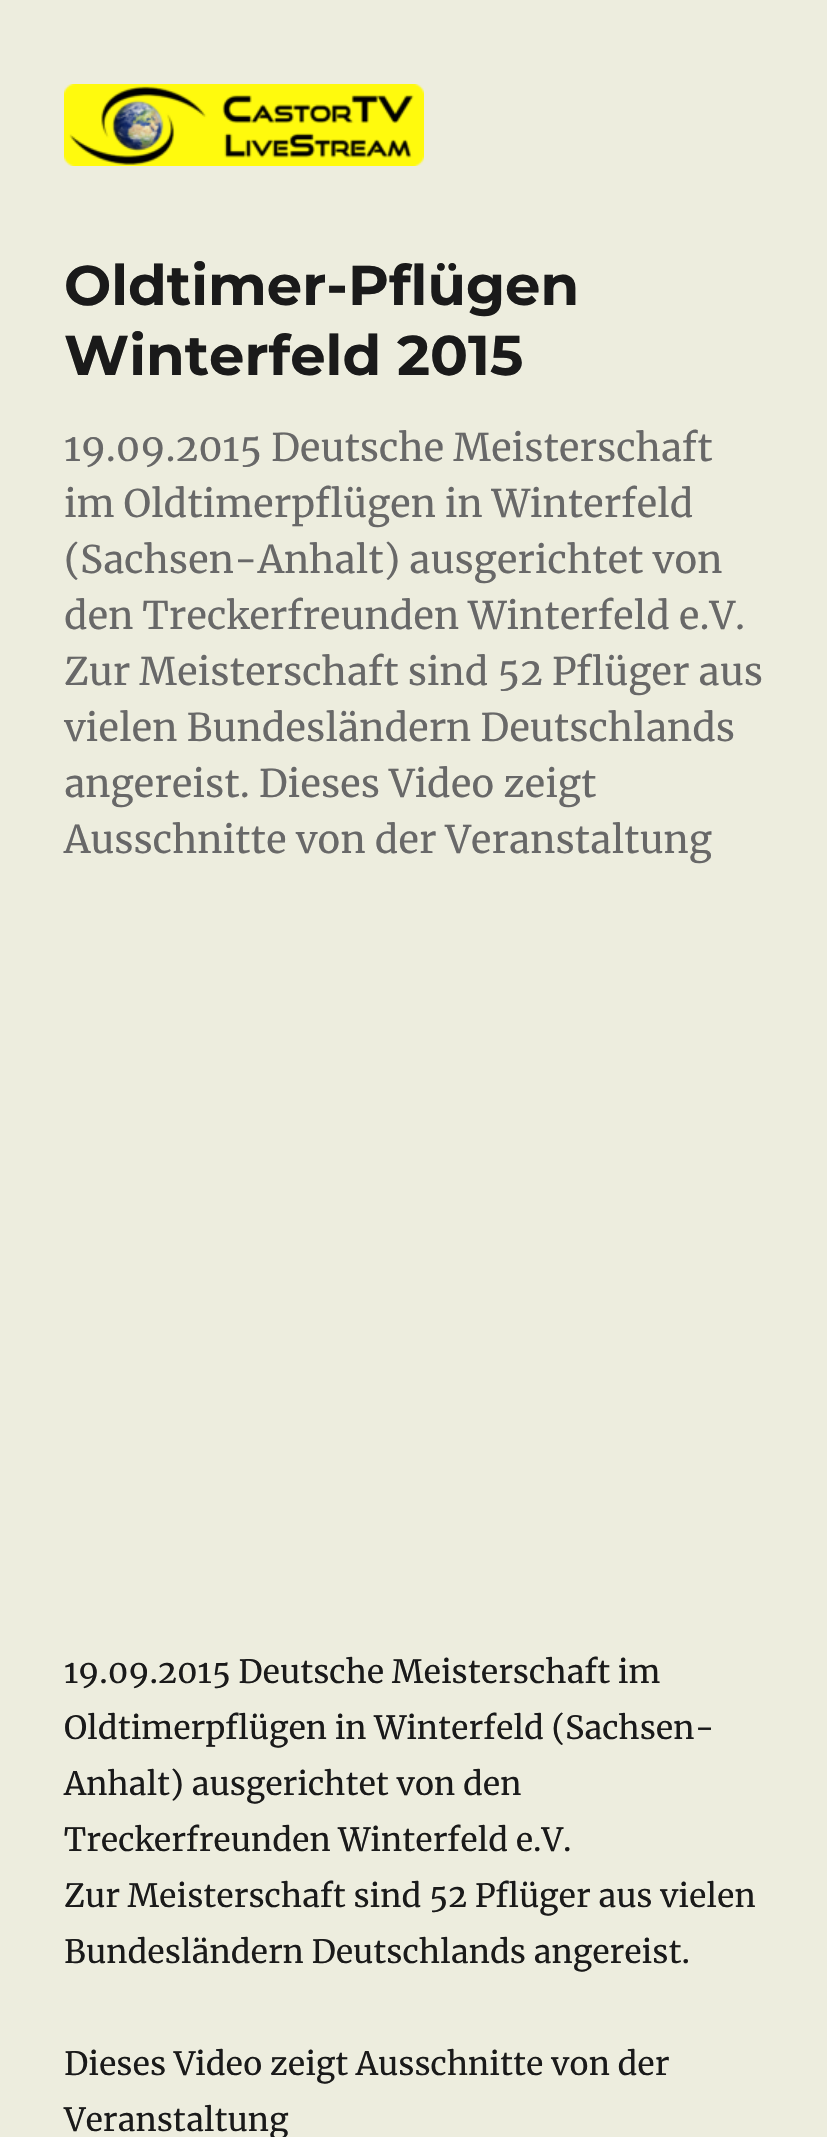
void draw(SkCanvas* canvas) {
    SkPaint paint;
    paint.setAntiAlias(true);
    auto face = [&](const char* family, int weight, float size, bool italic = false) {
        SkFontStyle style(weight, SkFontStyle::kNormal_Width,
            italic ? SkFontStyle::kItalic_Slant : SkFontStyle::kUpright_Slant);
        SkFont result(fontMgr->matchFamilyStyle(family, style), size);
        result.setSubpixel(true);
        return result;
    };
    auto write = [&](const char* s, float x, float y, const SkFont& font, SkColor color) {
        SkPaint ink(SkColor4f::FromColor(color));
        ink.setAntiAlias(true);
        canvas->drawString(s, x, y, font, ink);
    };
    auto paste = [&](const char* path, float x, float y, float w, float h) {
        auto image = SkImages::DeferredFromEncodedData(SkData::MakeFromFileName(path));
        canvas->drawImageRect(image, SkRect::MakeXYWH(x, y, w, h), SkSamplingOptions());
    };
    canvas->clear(SkColorSetRGB(237, 237, 222));
    paste("pic1.png", 64, 84, 360, 82);
    auto kFont1 = face("Montserrat", 100, 56);
    write("Oldtimer-Pflügen", 64, 305, kFont1, SkColorSetRGB(26, 26, 26));
    write("Winterfeld 2015", 64, 375, kFont1, SkColorSetRGB(26, 26, 26));
    auto kFont2 = face("Merriweather", 400, 38);
    write("19.09.2015 Deutsche Meisterschaft", 64, 461, kFont2, SkColorSetRGB(104, 104, 104));
    write("im Oldtimerpflügen in Winterfeld", 64, 517, kFont2, SkColorSetRGB(104, 104, 104));
    write("(Sachsen-Anhalt) ausgerichtet von", 64, 573, kFont2, SkColorSetRGB(104, 104, 104));
    write("den Treckerfreunden Winterfeld e.V.", 64, 629, kFont2, SkColorSetRGB(104, 104, 104));
    write("Zur Meisterschaft sind 52 Pflüger aus", 64, 685, kFont2, SkColorSetRGB(104, 104, 104));
    write("vielen Bundesländern Deutschlands", 64, 741, kFont2, SkColorSetRGB(104, 104, 104));
    write("angereist. Dieses Video zeigt", 64, 797, kFont2, SkColorSetRGB(104, 104, 104));
    write("Ausschnitte von der Veranstaltung", 64, 853, kFont2, SkColorSetRGB(104, 104, 104));
    auto kFont3 = face("Merriweather", 400, 32);
    write("19.09.2015 Deutsche Meisterschaft im", 64, 1683, kFont3, SkColorSetRGB(26, 26, 26));
    write("Oldtimerpflügen in Winterfeld (Sachsen-", 64, 1739, kFont3, SkColorSetRGB(26, 26, 26));
    write("Anhalt) ausgerichtet von den", 64, 1795, kFont3, SkColorSetRGB(26, 26, 26));
    write("Treckerfreunden Winterfeld e.V.", 64, 1851, kFont3, SkColorSetRGB(26, 26, 26));
    write("Zur Meisterschaft sind 52 Pflüger aus vielen", 64, 1907, kFont3, SkColorSetRGB(26, 26, 26));
    write("Bundesländern Deutschlands angereist.", 64, 1963, kFont3, SkColorSetRGB(26, 26, 26));
    write("Dieses Video zeigt Ausschnitte von der", 64, 2075, kFont3, SkColorSetRGB(26, 26, 26));
    write("Veranstaltung", 64, 2131, kFont3, SkColorSetRGB(26, 26, 26));
}
